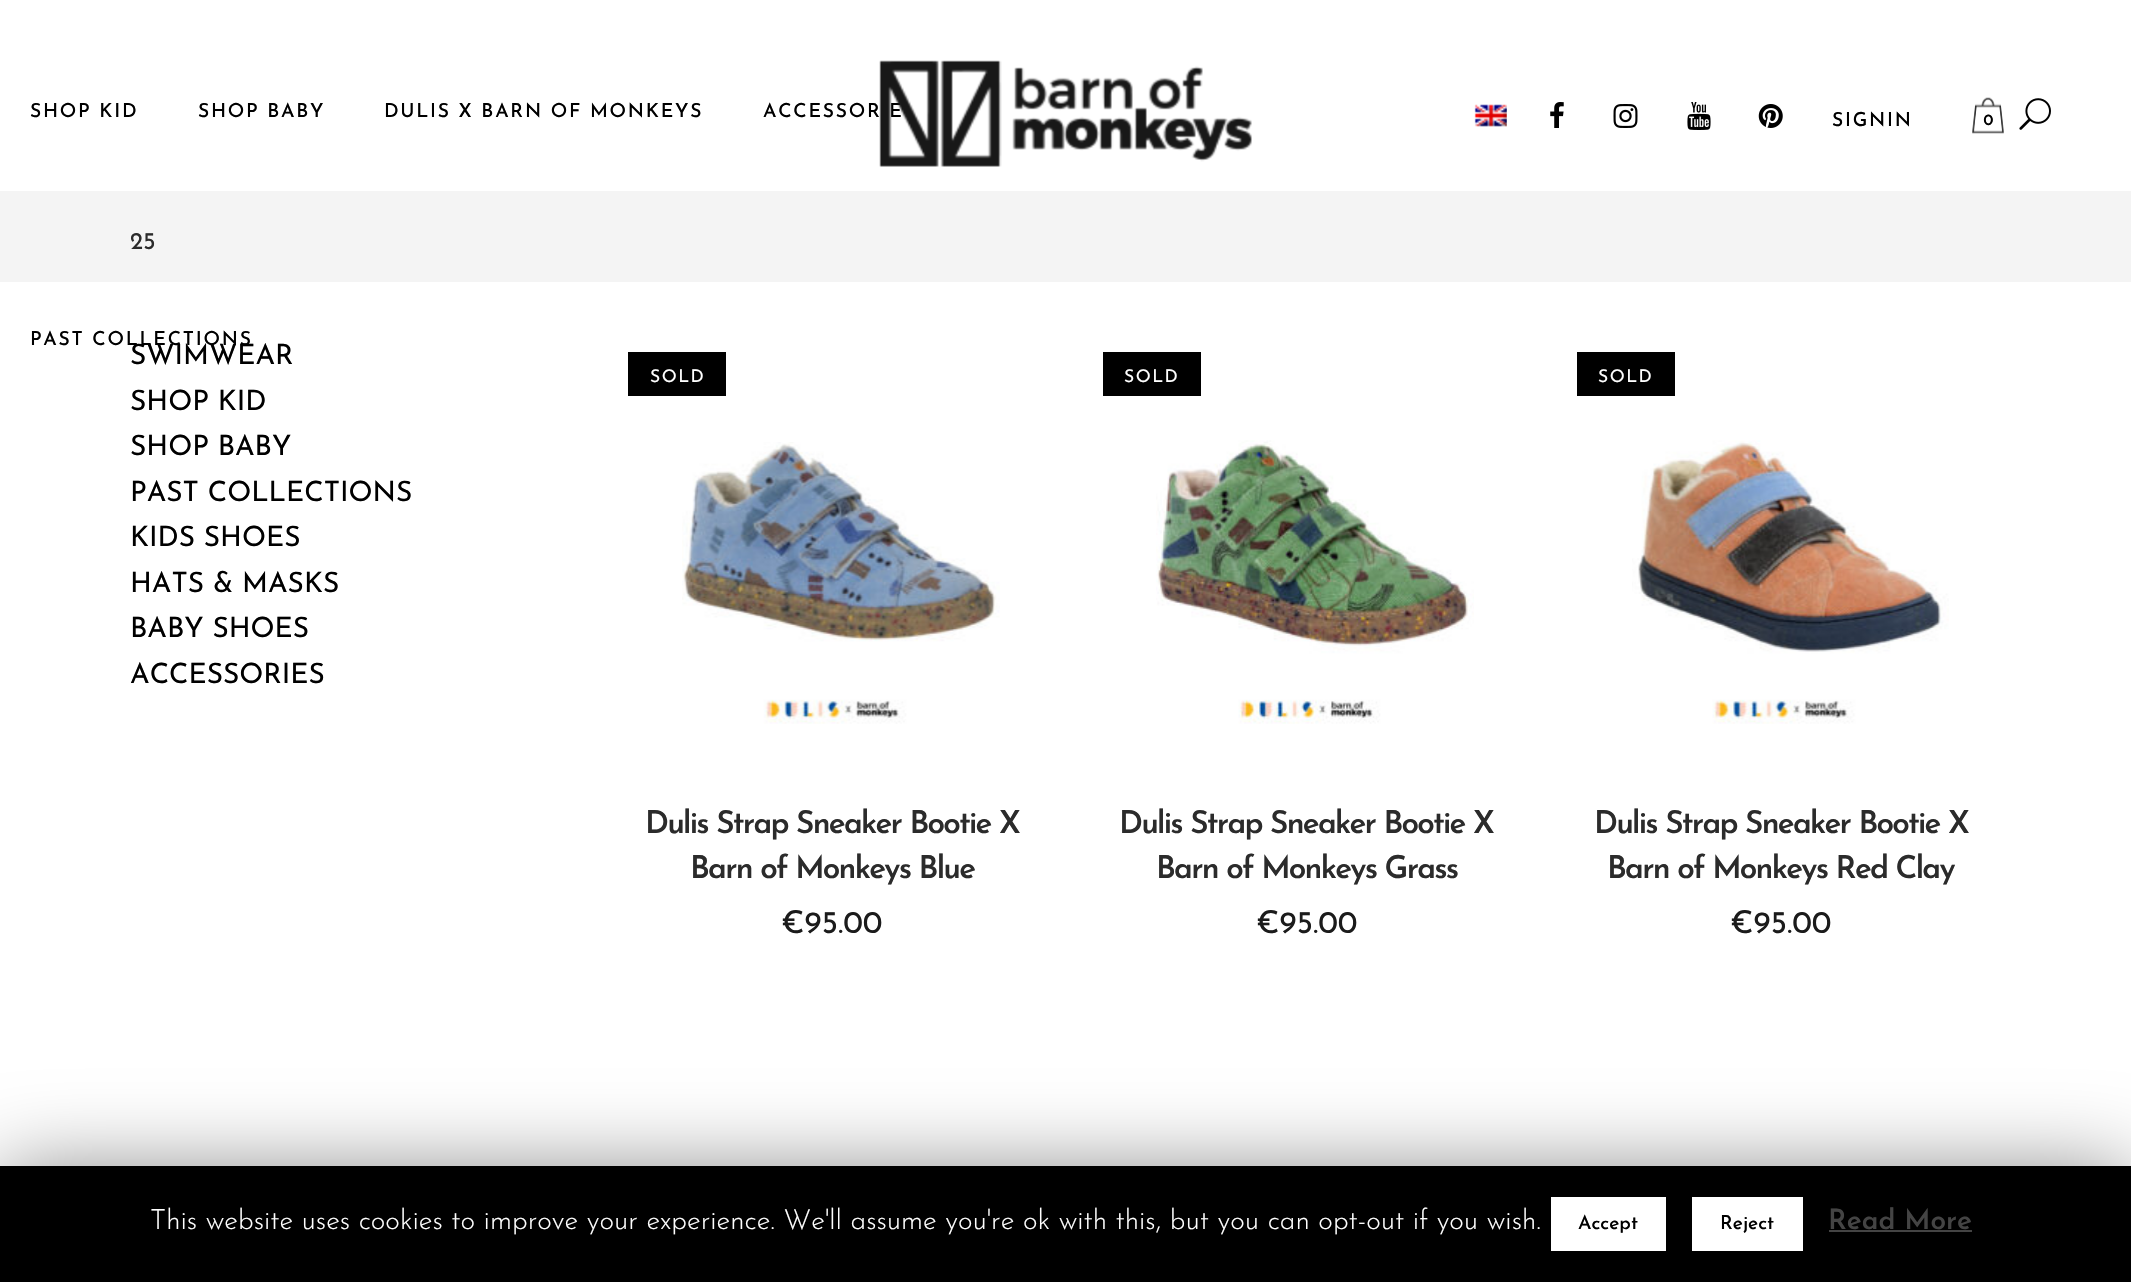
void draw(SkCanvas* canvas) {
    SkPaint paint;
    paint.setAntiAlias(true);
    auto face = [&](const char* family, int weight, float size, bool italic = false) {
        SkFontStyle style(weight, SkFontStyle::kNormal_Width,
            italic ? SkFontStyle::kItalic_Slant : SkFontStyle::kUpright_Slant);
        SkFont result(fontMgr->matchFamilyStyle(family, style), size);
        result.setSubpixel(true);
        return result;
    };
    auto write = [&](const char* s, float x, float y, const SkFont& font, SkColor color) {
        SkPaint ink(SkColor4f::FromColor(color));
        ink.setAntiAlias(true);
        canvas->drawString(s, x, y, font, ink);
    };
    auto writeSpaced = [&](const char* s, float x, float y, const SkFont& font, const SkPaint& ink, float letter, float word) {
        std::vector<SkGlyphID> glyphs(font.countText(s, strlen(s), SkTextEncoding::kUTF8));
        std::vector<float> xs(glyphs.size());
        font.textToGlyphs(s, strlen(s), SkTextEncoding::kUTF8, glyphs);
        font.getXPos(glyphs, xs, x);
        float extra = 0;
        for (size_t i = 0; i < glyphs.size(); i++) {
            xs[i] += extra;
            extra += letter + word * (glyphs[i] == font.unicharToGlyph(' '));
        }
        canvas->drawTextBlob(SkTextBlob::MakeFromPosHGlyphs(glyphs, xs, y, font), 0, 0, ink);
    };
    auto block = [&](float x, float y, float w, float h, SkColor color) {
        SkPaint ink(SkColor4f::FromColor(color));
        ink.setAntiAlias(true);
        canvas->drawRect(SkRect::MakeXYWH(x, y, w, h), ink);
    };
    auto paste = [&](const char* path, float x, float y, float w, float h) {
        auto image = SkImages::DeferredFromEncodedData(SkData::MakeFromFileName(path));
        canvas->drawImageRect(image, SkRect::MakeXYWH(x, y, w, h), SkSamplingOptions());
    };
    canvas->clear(SK_ColorWHITE);
    auto kFont1 = face("Josefin Sans", 500, 19.25f);
    paint.setColor(SK_ColorBLACK);
    writeSpaced("SHOP KID", 30, 117, kFont1, paint, 1.75f, 0);
    writeSpaced("SHOP BABY", 198, 117, kFont1, paint, 1.75f, 0);
    writeSpaced("DULIS X BARN OF MONKEYS", 384, 117, kFont1, paint, 1.75f, 0);
    writeSpaced("ACCESSORIE", 763, 117, kFont1, paint, 1.75f, 0);
    writeSpaced("PAST COLLECTIONS", 30, 345, kFont1, paint, 1.75f, 0);
    paste("pic1.png", 879, 60, 373, 107);
    paste("pic2.png", 1474, 104, 33, 23);
    paste("pic3.png", 1550, 102, 14, 26);
    paste("pic4.png", 1613, 104, 25, 24);
    paste("pic5.png", 1687, 102, 24, 28);
    paste("pic6.png", 1758, 104, 25, 24);
    writeSpaced("SIGNIN", 1832, 126, kFont1, paint, 1.75f, 0);
    paste("pic7.png", 1972, 97, 32, 37);
    auto kFont2 = face("Raleway", 600, 17.5f);
    write("0", 1983, 125, kFont2, SK_ColorBLACK);
    paste("pic8.png", 2019, 98, 32, 32);
    block(0, 191, 2131, 91, SkColorSetRGB(244, 244, 244));
    auto kFont3 = face("Josefin Sans", 400, 24);
    write("25", 130, 249, kFont3, SkColorSetRGB(43, 43, 43));
    auto kFont4 = face("Josefin Sans", 400, 28);
    write("SWIMWEAR", 130, 364, kFont4, SK_ColorBLACK);
    write("SHOP KID", 130, 410, kFont4, SK_ColorBLACK);
    write("SHOP BABY", 130, 455, kFont4, SK_ColorBLACK);
    write("PAST COLLECTIONS", 130, 501, kFont4, SK_ColorBLACK);
    write("KIDS SHOES", 130, 546, kFont4, SK_ColorBLACK);
    write("HATS & MASKS", 130, 592, kFont4, SK_ColorBLACK);
    write("BABY SHOES", 130, 637, kFont4, SK_ColorBLACK);
    write("ACCESSORIES", 130, 683, kFont4, SK_ColorBLACK);
    block(628, 352, 98, 44, SK_ColorBLACK);
    auto kFont5 = face("Josefin Sans", 400, 17.5f);
    paint.setColor(SK_ColorWHITE);
    writeSpaced("SOLD", 650, 382, kFont5, paint, 1.5f, 0);
    paste("pic9.png", 682, 442, 318, 282);
    auto kFont6 = face("Josefin Sans", 600, 31.5f);
    paint.setColor(SkColorSetRGB(43, 43, 43));
    writeSpaced("Dulis Strap Sneaker Bootie X", 645, 833, kFont6, paint, -1.75f, 0);
    writeSpaced("Barn of Monkeys Blue", 690, 878, kFont6, paint, -1.75f, 0);
    auto kFont7 = face("Josefin Sans", 400, 31.5f);
    write("€95.00", 781, 933, kFont7, SkColorSetRGB(27, 27, 27));
    block(1103, 352, 98, 44, SK_ColorBLACK);
    paint.setColor(SK_ColorWHITE);
    writeSpaced("SOLD", 1124, 382, kFont5, paint, 1.5f, 0);
    paste("pic10.png", 1156, 440, 318, 284);
    paint.setColor(SkColorSetRGB(43, 43, 43));
    writeSpaced("Dulis Strap Sneaker Bootie X", 1119, 833, kFont6, paint, -1.75f, 0);
    writeSpaced("Barn of Monkeys Grass", 1156, 878, kFont6, paint, -1.75f, 0);
    write("€95.00", 1256, 933, kFont7, SkColorSetRGB(27, 27, 27));
    block(1577, 352, 98, 44, SK_ColorBLACK);
    paint.setColor(SK_ColorWHITE);
    writeSpaced("SOLD", 1598, 382, kFont5, paint, 1.5f, 0);
    paste("pic11.png", 1632, 440, 317, 284);
    paint.setColor(SkColorSetRGB(43, 43, 43));
    writeSpaced("Dulis Strap Sneaker Bootie X", 1594, 833, kFont6, paint, -1.75f, 0);
    writeSpaced("Barn of Monkeys Red Clay", 1607, 878, kFont6, paint, -1.75f, 0);
    write("€95.00", 1730, 933, kFont7, SkColorSetRGB(27, 27, 27));
    paint.setColor(SkColorSetARGB(128, 0, 0, 0));
    paint.setMaskFilter(SkMaskFilter::MakeBlur(kNormal_SkBlurStyle, 44));
    canvas->drawRect(SkRect::MakeXYWH(0, 1174, 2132, 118), paint);
    paint.setMaskFilter(nullptr);
    block(0, 1166, 2131, 116, SK_ColorBLACK);
    auto kFont8 = face("Josefin Sans", 300, 28);
    write("This website uses cookies to improve your experience. We'll assume you're ok with this, but you can opt-out if you wish.", 150, 1229, kFont8, SK_ColorWHITE);
    block(1551, 1197, 115, 54, SK_ColorWHITE);
    write("Accept", 1578, 1229, kFont1, SK_ColorBLACK);
    block(1692, 1197, 111, 54, SK_ColorWHITE);
    write("Reject", 1720, 1229, kFont1, SK_ColorBLACK);
    auto kFont9 = face("Josefin Sans", 600, 28);
    write("Read More", 1828, 1229, kFont9, SkColorSetRGB(68, 68, 68));
    block(1829, 1230, 143, 2, SkColorSetRGB(68, 68, 68));
}
